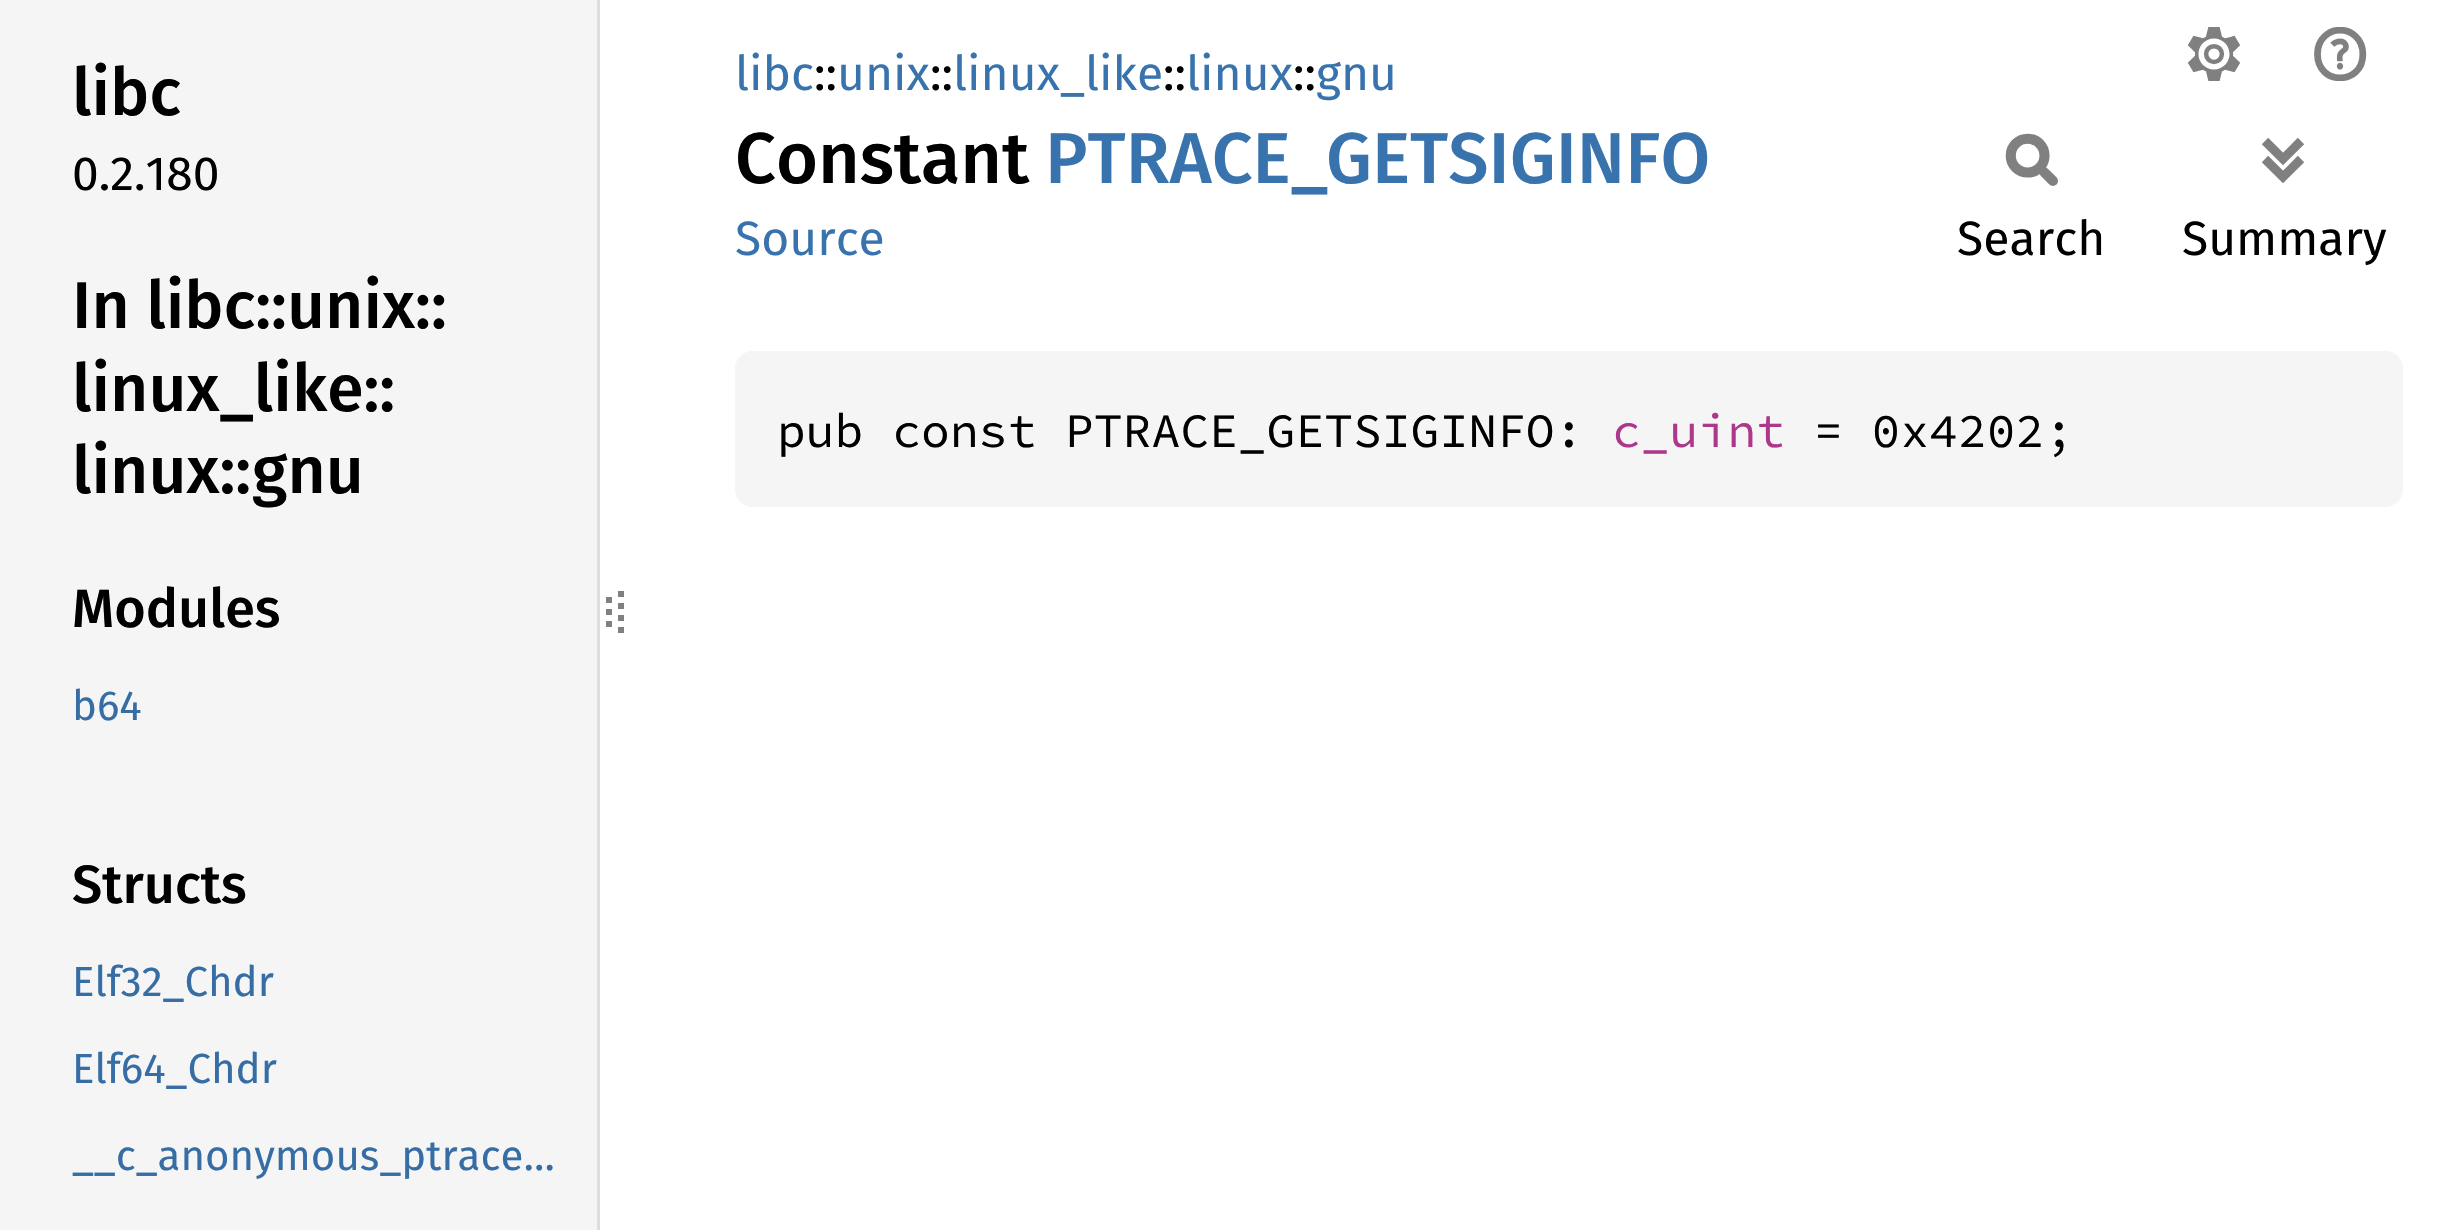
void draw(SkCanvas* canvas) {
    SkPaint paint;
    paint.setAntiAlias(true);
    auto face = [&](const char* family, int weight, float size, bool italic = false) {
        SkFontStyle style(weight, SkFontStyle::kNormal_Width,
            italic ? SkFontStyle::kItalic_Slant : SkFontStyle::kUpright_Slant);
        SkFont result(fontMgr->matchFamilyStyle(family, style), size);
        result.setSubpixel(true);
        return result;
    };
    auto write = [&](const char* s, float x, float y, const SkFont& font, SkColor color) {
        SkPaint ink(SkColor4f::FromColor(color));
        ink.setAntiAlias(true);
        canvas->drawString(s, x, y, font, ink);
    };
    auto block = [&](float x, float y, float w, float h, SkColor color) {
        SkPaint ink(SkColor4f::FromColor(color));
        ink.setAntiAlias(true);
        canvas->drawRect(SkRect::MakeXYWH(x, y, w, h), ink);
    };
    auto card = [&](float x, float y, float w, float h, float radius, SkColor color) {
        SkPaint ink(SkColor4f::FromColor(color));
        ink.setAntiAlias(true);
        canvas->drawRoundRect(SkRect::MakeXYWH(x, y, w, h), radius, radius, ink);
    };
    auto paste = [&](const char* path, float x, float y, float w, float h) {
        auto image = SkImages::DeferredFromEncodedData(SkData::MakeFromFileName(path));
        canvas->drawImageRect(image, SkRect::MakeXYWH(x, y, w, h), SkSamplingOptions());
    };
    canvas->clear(SK_ColorWHITE);
    block(0, 0, 597, 1230, SkColorSetRGB(245, 245, 245));
    block(597, 0, 3, 1230, SkColorSetRGB(221, 221, 221));
    auto kFont1 = face("Fira Sans", 500, 66);
    write("libc", 72, 115, kFont1, SK_ColorBLACK);
    auto kFont2 = face("Fira Sans", 400, 48);
    write("0.2.180", 72, 190, kFont2, SK_ColorBLACK);
    write("In libc::", 72, 328, kFont1, SK_ColorBLACK);
    write("unix::", 287, 328, kFont1, SK_ColorBLACK);
    write("linux_like::", 72, 411, kFont1, SK_ColorBLACK);
    write("linux::", 72, 493, kFont1, SK_ColorBLACK);
    write("gnu", 252, 493, kFont1, SK_ColorBLACK);
    auto kFont3 = face("Fira Sans", 500, 54);
    write("Modules", 72, 627, kFont3, SK_ColorBLACK);
    auto kFont4 = face("Fira Sans", 400, 42);
    write("b64", 72, 720, kFont4, SkColorSetRGB(53, 109, 164));
    write("Structs", 72, 903, kFont3, SK_ColorBLACK);
    write("Elf32_Chdr", 72, 996, kFont4, SkColorSetRGB(53, 109, 164));
    write("Elf64_Chdr", 72, 1083, kFont4, SkColorSetRGB(53, 109, 164));
    write("__c_anonymous_ptrace…", 72, 1170, kFont4, SkColorSetRGB(53, 109, 164));
    paint.setStyle(SkPaint::kStroke_Style);
    paint.setStrokeWidth(6);
    paint.setColor(SkColorSetRGB(128, 128, 128));
    canvas->drawPath(SkPathBuilder().moveTo(609, 597).lineTo(609, 603).moveTo(609, 609).lineTo(609, 615).moveTo(609, 621).lineTo(609, 627).detach(), paint);
    paint.setPathEffect(SkDashPathEffect::Make({{6, 6}}, 0));
    canvas->drawPath(SkPathBuilder().moveTo(621, 591).lineTo(621, 639).detach(), paint);
    paint.setPathEffect(nullptr);
    write("libc", 735, 90, kFont2, SkColorSetRGB(56, 115, 173));
    write("::", 814, 90, kFont2, SK_ColorBLACK);
    write("unix", 837, 90, kFont2, SkColorSetRGB(56, 115, 173));
    write("::", 930, 90, kFont2, SK_ColorBLACK);
    write("linux_like", 953, 90, kFont2, SkColorSetRGB(56, 115, 173));
    write("::", 1163, 90, kFont2, SK_ColorBLACK);
    write("linux", 1186, 90, kFont2, SkColorSetRGB(56, 115, 173));
    write("::", 1293, 90, kFont2, SK_ColorBLACK);
    write("gnu", 1316, 90, kFont2, SkColorSetRGB(56, 115, 173));
    auto kFont5 = face("Fira Sans", 500, 72);
    write("Constant", 735, 183, kFont5, SK_ColorBLACK);
    write("PTRACE_", 1045, 183, kFont5, SkColorSetRGB(56, 115, 173));
    write("GETSIGINFO", 1326, 183, kFont5, SkColorSetRGB(56, 115, 173));
    write("Source", 735, 255, kFont2, SkColorSetRGB(56, 115, 173));
    paste("pic1.png", 2187, 27, 54, 54);
    paste("pic2.png", 2314, 27, 53, 54);
    paste("pic3.png", 2005, 133, 53, 53);
    write("Search", 1957, 255, kFont2, SK_ColorBLACK);
    paste("pic4.png", 2262, 137, 42, 46);
    write("Summary", 2182, 255, kFont2, SK_ColorBLACK);
    card(735, 351, 1668, 156, 18, SkColorSetRGB(245, 245, 245));
    auto kFont6 = face("Source Code Pro", 400, 48);
    write("pub const PTRACE_GETSIGINFO:", 777, 447, kFont6, SK_ColorBLACK);
    write("c_uint", 1612, 447, kFont6, SkColorSetRGB(173, 55, 138));
    write("= 0x4202;", 1814, 447, kFont6, SK_ColorBLACK);
}
